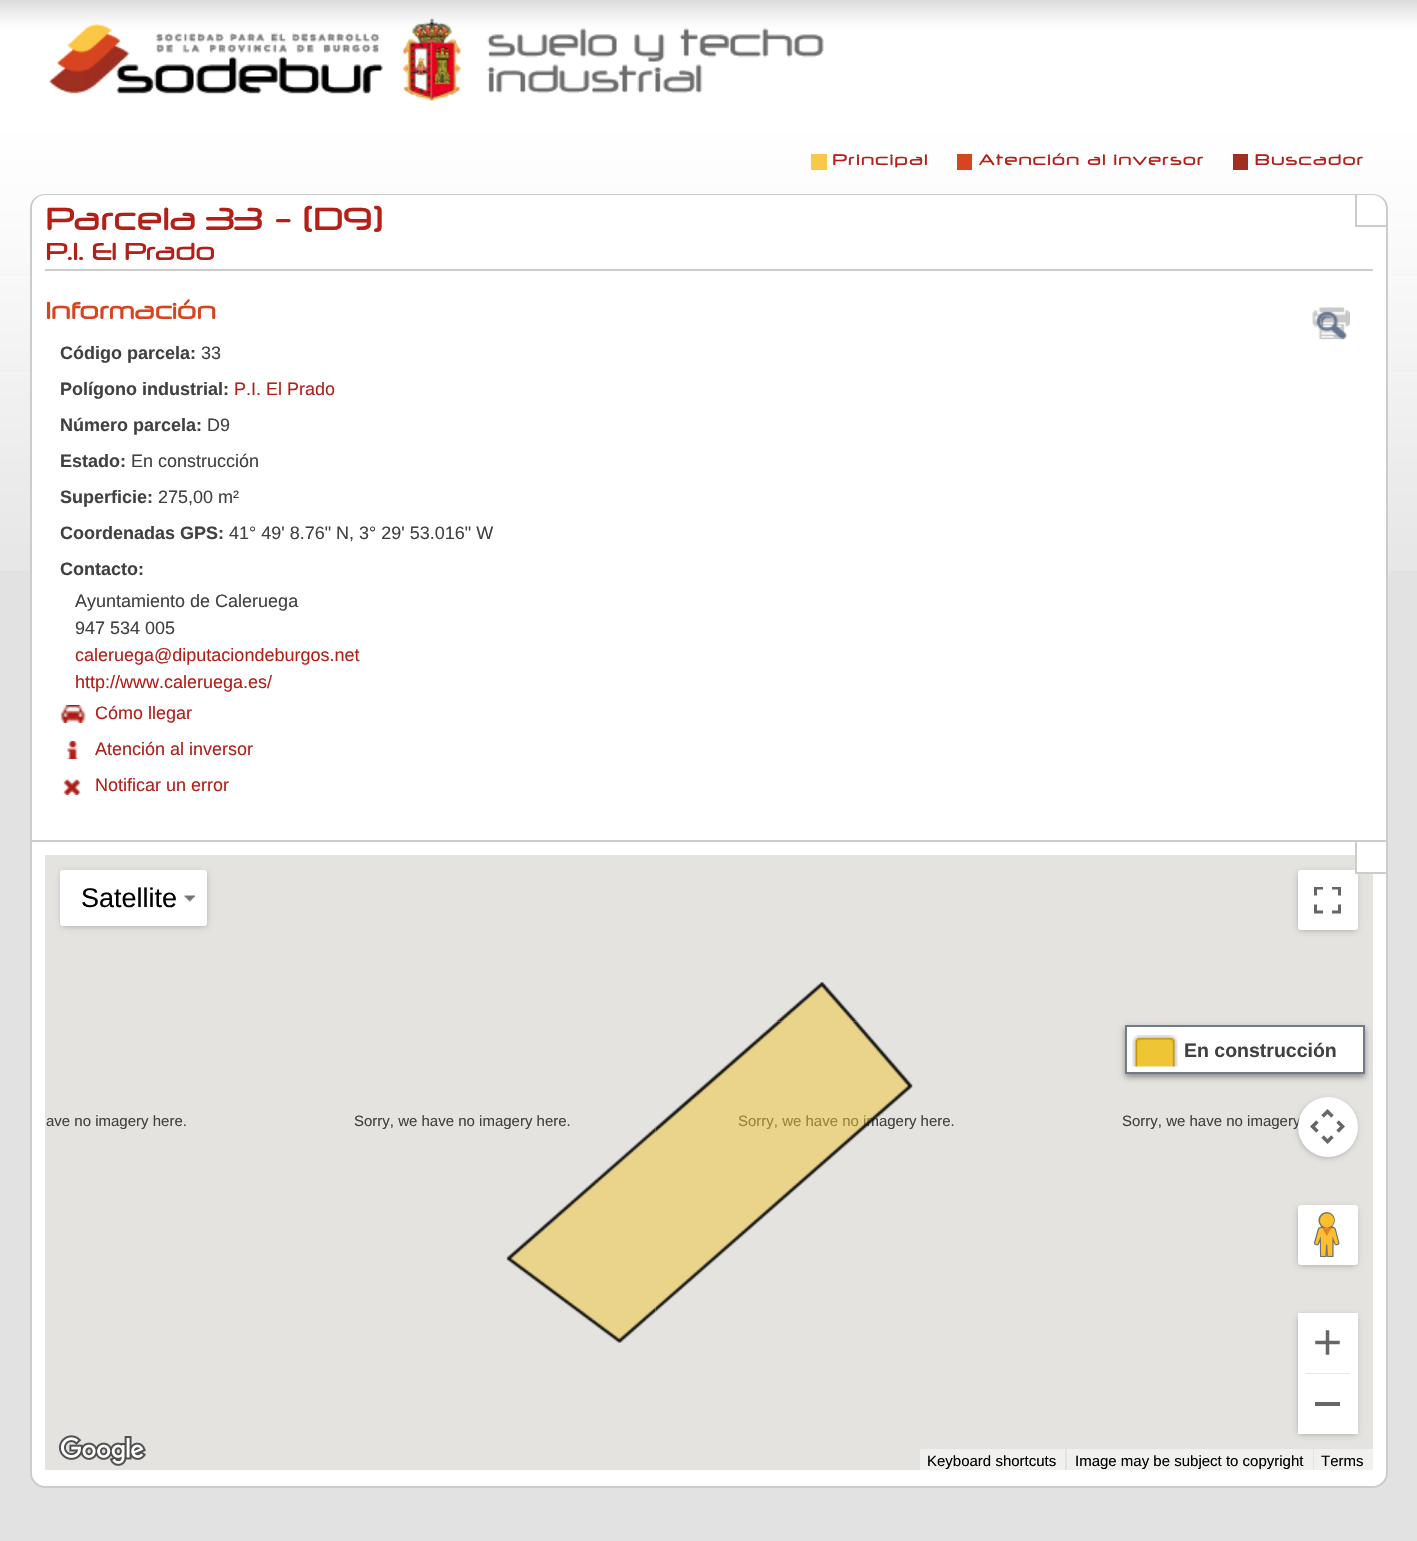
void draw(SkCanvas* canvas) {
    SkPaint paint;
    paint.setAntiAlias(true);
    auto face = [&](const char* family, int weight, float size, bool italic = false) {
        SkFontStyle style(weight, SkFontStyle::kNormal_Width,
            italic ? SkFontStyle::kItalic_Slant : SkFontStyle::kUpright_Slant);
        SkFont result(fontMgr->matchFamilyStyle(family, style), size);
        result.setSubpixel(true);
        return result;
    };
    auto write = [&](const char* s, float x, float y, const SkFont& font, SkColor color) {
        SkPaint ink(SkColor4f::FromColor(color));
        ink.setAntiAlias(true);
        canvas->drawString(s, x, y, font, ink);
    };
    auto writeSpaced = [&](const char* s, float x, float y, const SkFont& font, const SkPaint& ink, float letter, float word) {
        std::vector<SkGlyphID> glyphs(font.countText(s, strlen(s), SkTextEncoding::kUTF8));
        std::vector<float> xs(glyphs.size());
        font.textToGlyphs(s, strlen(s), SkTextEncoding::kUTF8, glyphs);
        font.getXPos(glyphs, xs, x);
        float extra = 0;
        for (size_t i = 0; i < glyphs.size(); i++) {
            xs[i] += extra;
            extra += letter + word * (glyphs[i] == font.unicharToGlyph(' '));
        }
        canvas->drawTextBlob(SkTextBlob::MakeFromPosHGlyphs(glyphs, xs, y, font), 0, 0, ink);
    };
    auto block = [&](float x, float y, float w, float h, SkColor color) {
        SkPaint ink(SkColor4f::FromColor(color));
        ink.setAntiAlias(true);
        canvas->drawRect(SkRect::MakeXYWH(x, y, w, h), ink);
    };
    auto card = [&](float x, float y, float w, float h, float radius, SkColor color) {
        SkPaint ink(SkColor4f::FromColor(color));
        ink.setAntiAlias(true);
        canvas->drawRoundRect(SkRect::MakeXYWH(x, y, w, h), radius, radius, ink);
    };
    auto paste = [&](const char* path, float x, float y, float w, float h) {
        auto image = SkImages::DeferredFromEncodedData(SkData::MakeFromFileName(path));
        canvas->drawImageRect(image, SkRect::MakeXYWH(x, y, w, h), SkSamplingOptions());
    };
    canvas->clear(SkColorSetRGB(226, 226, 226));
    paste("pic1.png", 0, 0, 1417, 571);
    paste("pic2.png", 49, 18, 775, 83);
    auto kFont1 = face("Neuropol", 400, 18);
    paint.setColor(SkColorSetRGB(179, 32, 24));
    writeSpaced("Principal", 833, 165, kFont1, paint, 1.5f, 0);
    block(811, 154, 16, 16, SkColorSetRGB(250, 200, 71));
    writeSpaced("Atención al inversor", 979, 165, kFont1, paint, 1.5f, 0);
    block(957, 154, 15, 16, SkColorSetRGB(214, 69, 29));
    writeSpaced("Buscador", 1255, 165, kFont1, paint, 1.5f, 0);
    block(1233, 154, 15, 16, SkColorSetRGB(159, 48, 33));
    paint.setColor(SK_ColorWHITE);
    canvas->drawPath(SkPathBuilder().moveTo(45, 194).lineTo(1373, 194).cubicTo(1381.5f, 194, 1388, 200.5f, 1388, 209).lineTo(1388, 840).lineTo(30, 840).lineTo(30, 209).cubicTo(30, 200.5f, 36.5f, 194, 45, 194).close().detach(), paint);
    paint.setColor(SkColorSetRGB(204, 204, 204));
    canvas->drawPath(SkPathBuilder(SkPathFillType::kEvenOdd).moveTo(45, 194).lineTo(1372, 194).cubicTo(1381, 194, 1388, 200, 1388, 208).lineTo(1388, 840).lineTo(30, 840).lineTo(30, 208).cubicTo(30, 200, 37, 194, 45, 194).close().moveTo(45, 195).lineTo(1372, 195).cubicTo(1380, 195, 1386, 201, 1386, 208).lineTo(1386, 840).lineTo(32, 840).lineTo(32, 208).cubicTo(32, 201, 38, 195, 45, 195).close().detach(), paint);
    block(45, 269, 1328, 2, SkColorSetRGB(204, 204, 204));
    auto kFont2 = face("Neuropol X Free", 700, 30.6f);
    paint.setColor(SkColorSetRGB(179, 32, 24));
    writeSpaced("Parcela 33 - (D9)", 45, 230, kFont2, paint, -1.5f, 0);
    auto kFont3 = face("Neuropol X Free", 700, 23.5f);
    writeSpaced("P.I. El Prado", 45, 260, kFont3, paint, -1.5f, 0);
    paint.setColor(SkColorSetRGB(214, 69, 29));
    writeSpaced("Información", 45, 319, kFont3, paint, -1.5f, 0);
    auto kFont4 = face("Liberation Sans", 700, 18);
    write("Código parcela:", 60, 359, kFont4, SkColorSetRGB(65, 65, 65));
    auto kFont5 = face("Liberation Sans", 400, 18);
    write("33", 201, 359, kFont5, SkColorSetRGB(65, 65, 65));
    write("Polígono industrial:", 60, 395, kFont4, SkColorSetRGB(65, 65, 65));
    write("P.I. El Prado", 234, 395, kFont5, SkColorSetRGB(179, 32, 24));
    write("Número parcela:", 60, 431, kFont4, SkColorSetRGB(65, 65, 65));
    write("D9", 207, 431, kFont5, SkColorSetRGB(65, 65, 65));
    write("Estado:", 60, 467, kFont4, SkColorSetRGB(65, 65, 65));
    write("En construcción", 131, 467, kFont5, SkColorSetRGB(65, 65, 65));
    write("Superficie:", 60, 503, kFont4, SkColorSetRGB(65, 65, 65));
    write("275,00 m²", 158, 503, kFont5, SkColorSetRGB(65, 65, 65));
    write("Coordenadas GPS:", 60, 539, kFont4, SkColorSetRGB(65, 65, 65));
    write("41° 49' 8.76\" N, 3° 29' 53.016\" W", 229, 539, kFont5, SkColorSetRGB(65, 65, 65));
    write("Contacto:", 60, 575, kFont4, SkColorSetRGB(65, 65, 65));
    write("Ayuntamiento de Caleruega", 75, 607, kFont5, SkColorSetRGB(65, 65, 65));
    write("947 534 005", 75, 634, kFont5, SkColorSetRGB(65, 65, 65));
    write("caleruega@diputaciondeburgos.net", 75, 661, kFont5, SkColorSetRGB(179, 32, 24));
    write("http://www.caleruega.es/", 75, 688, kFont5, SkColorSetRGB(179, 32, 24));
    paste("pic3.png", 60, 705, 26, 18);
    write("Cómo llegar", 95, 719, kFont5, SkColorSetRGB(179, 32, 24));
    paste("pic4.png", 67, 741, 12, 18);
    write("Atención al inversor", 95, 755, kFont5, SkColorSetRGB(179, 32, 24));
    paste("pic5.png", 63, 778, 18, 17);
    write("Notificar un error", 95, 791, kFont5, SkColorSetRGB(179, 32, 24));
    paste("pic6.png", 1312, 307, 38, 33);
    block(1355, 225, 31, 2, SkColorSetRGB(204, 204, 204));
    block(1355, 195, 2, 32, SkColorSetRGB(204, 204, 204));
    paint.setColor(SK_ColorWHITE);
    canvas->drawPath(SkPathBuilder().moveTo(31, 841).lineTo(1387, 841).lineTo(1387, 1473).cubicTo(1387, 1480.5f, 1380.5f, 1487, 1373, 1487).lineTo(45, 1487).cubicTo(37.5f, 1487, 31, 1480.5f, 31, 1473).close().detach(), paint);
    paint.setStyle(SkPaint::kStroke_Style);
    paint.setStrokeWidth(2);
    paint.setColor(SkColorSetRGB(204, 204, 204));
    canvas->drawPath(SkPathBuilder().moveTo(31, 841).lineTo(1387, 841).lineTo(1387, 1473).cubicTo(1387, 1480.5f, 1380.5f, 1487, 1373, 1487).lineTo(45, 1487).cubicTo(37.5f, 1487, 31, 1480.5f, 31, 1473).close().detach(), paint);
    block(45, 855, 1328, 615, SkColorSetRGB(229, 227, 223));
    paint.setStyle(SkPaint::kFill_Style);
    paint.setColor(SkColorSetARGB(77, 0, 0, 0));
    paint.setMaskFilter(SkMaskFilter::MakeBlur(kNormal_SkBlurStyle, 3));
    canvas->drawRoundRect(SkRect::MakeXYWH(1299, 873, 57, 57), 1.5f, 1.5f, paint);
    paint.setMaskFilter(nullptr);
    card(1298, 870, 60, 60, 3, SK_ColorWHITE);
    block(1357, 855, 16, 17, SK_ColorWHITE);
    block(1355, 872, 31, 2, SkColorSetRGB(204, 204, 204));
    block(1355, 842, 2, 31, SkColorSetRGB(204, 204, 204));
    paint.setMaskFilter(SkMaskFilter::MakeBlur(kNormal_SkBlurStyle, 3));
    canvas->drawRoundRect(SkRect::MakeXYWH(62, 873, 144, 53), 1.5f, 1.5f, paint);
    paint.setMaskFilter(nullptr);
    card(60, 870, 147, 56, 3, SK_ColorWHITE);
    auto kFont6 = face("Liberation Sans", 400, 27);
    write("Satellite", 81, 907, kFont6, SK_ColorBLACK);
    paste("pic7.png", 184, 895, 11, 7);
    paste("pic8.png", 1314, 887, 27, 27);
    paint.setColor(SkColorSetARGB(102, 0, 0, 0));
    paint.setMaskFilter(SkMaskFilter::MakeBlur(kNormal_SkBlurStyle, 3));
    canvas->drawRect(SkRect::MakeXYWH(1125, 1028, 240, 49), paint);
    paint.setMaskFilter(nullptr);
    paint.setColor(SK_ColorWHITE);
    canvas->drawRect(SkRect::MakeXYWH(1126, 1026, 238, 47), paint);
    paint.setStyle(SkPaint::kStroke_Style);
    paint.setColor(SkColorSetRGB(113, 123, 135));
    canvas->drawRect(SkRect::MakeXYWH(1126, 1026, 238, 47), paint);
    paste("pic9.png", 1132, 1035, 46, 32);
    auto kFont7 = face("Liberation Sans", 700, 19.5f);
    write("En construcción", 1184, 1057, kFont7, SkColorSetRGB(65, 65, 65));
    paint.setStyle(SkPaint::kFill_Style);
    paint.setColor(SkColorSetARGB(77, 0, 0, 0));
    paint.setMaskFilter(SkMaskFilter::MakeBlur(kNormal_SkBlurStyle, 3));
    canvas->drawRoundRect(SkRect::MakeXYWH(1299, 1100, 57, 57), 28.5f, 28.5f, paint);
    paint.setMaskFilter(nullptr);
    auto kFont8 = face("Liberation Sans", 400, 15);
    write("Sorry, we have no imagery", 1122, 1126, kFont8, SkColorSetRGB(65, 65, 65));
    paint.setColor(SK_ColorWHITE);
    canvas->drawCircle(1328, 1127, 30, paint);
    paste("pic10.png", 1310, 1109, 35, 35);
    paint.setColor(SkColorSetARGB(77, 0, 0, 0));
    paint.setMaskFilter(SkMaskFilter::MakeBlur(kNormal_SkBlurStyle, 3));
    canvas->drawRoundRect(SkRect::MakeXYWH(1299, 1208, 57, 57), 1.5f, 1.5f, paint);
    paint.setMaskFilter(nullptr);
    card(1298, 1205, 60, 60, 3, SK_ColorWHITE);
    paste("pic11.png", 1314, 1212, 26, 45);
    paint.setMaskFilter(SkMaskFilter::MakeBlur(kNormal_SkBlurStyle, 3));
    canvas->drawRoundRect(SkRect::MakeXYWH(1299, 1316, 57, 118), 1.5f, 1.5f, paint);
    paint.setMaskFilter(nullptr);
    block(1298, 1313, 60, 121, SK_ColorWHITE);
    paste("pic12.png", 1315, 1330, 25, 25);
    block(1305, 1373, 45, 1, SkColorSetRGB(230, 230, 230));
    block(1315, 1402, 25, 4, SkColorSetRGB(102, 102, 102));
    write("Sorry, we have no imagery here.", 738, 1126, kFont8, SkColorSetRGB(65, 65, 65));
    paste("pic15.png", 655, 1021, 258, 291);
    paste("pic13.png", 776, 982, 82, 40);
    write("Sorry, we have no imagery here.", 354, 1126, kFont8, SkColorSetRGB(65, 65, 65));
    paste("pic14.png", 506, 1127, 150, 216);
    write("ave no imagery here.", 46, 1126, kFont8, SkColorSetRGB(65, 65, 65));
    paste("pic16.png", 58, 1435, 88, 31);
    block(920, 1449, 145, 21, SkColorSetRGB(240, 240, 238));
    write("Keyboard shortcuts", 927, 1466, kFont8, SK_ColorBLACK);
    block(1067, 1449, 246, 21, SkColorSetRGB(240, 240, 238));
    write("Image may be subject to copyright", 1075, 1466, kFont8, SK_ColorBLACK);
    block(1314, 1449, 59, 21, SkColorSetRGB(240, 240, 238));
    write("Terms", 1321, 1466, kFont8, SK_ColorBLACK);
}
